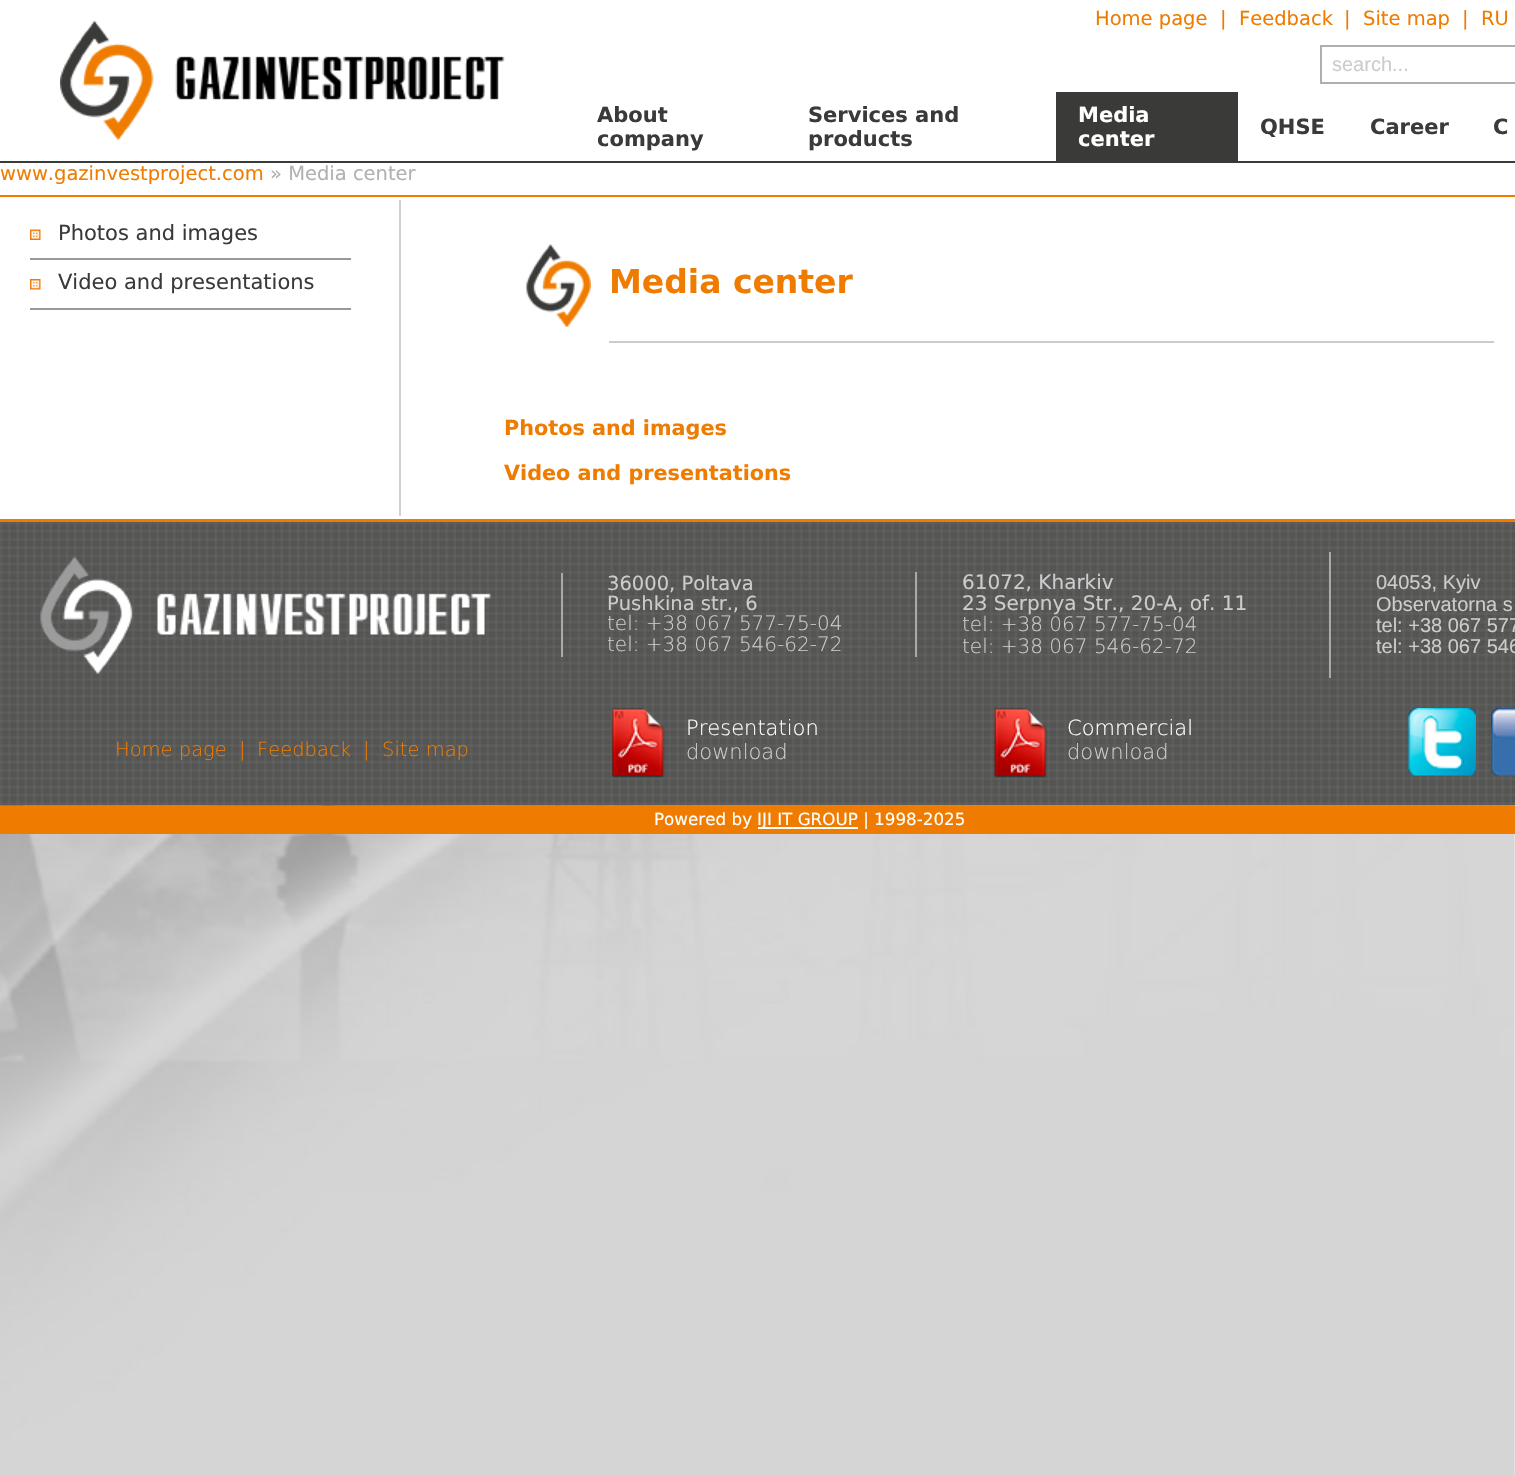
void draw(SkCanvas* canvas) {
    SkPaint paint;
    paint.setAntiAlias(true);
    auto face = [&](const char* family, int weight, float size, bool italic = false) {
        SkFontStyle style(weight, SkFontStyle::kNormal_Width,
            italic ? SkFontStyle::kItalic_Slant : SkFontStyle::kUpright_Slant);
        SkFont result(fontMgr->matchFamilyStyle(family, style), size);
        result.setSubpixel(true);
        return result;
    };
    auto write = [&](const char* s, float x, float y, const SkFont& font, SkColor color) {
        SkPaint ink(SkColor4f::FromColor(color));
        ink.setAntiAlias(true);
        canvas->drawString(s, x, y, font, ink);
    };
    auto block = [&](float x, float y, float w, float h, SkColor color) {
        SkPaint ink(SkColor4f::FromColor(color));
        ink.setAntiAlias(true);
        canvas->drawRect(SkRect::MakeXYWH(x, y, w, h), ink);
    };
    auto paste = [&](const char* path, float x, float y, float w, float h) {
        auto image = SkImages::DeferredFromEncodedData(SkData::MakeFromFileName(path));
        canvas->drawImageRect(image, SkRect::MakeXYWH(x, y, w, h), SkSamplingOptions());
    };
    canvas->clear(SK_ColorWHITE);
    paste("pic1.png", 0, 805, 1515, 670);
    paste("pic2.png", 60, 21, 445, 119);
    auto kFont1 = face("DejaVu Sans", 400, 19.5f);
    write("Home page", 1095, 25, kFont1, SkColorSetRGB(239, 124, 0));
    write("|", 1220, 25, kFont1, SkColorSetRGB(239, 124, 0));
    write("Feedback", 1239, 25, kFont1, SkColorSetRGB(239, 124, 0));
    write("|", 1344, 25, kFont1, SkColorSetRGB(239, 124, 0));
    write("Site map", 1363, 25, kFont1, SkColorSetRGB(239, 124, 0));
    write("|", 1462, 25, kFont1, SkColorSetRGB(239, 124, 0));
    write("RU", 1481, 25, kFont1, SkColorSetRGB(239, 124, 0));
    paint.setStyle(SkPaint::kStroke_Style);
    paint.setStrokeWidth(2);
    paint.setColor(SkColorSetRGB(175, 175, 175));
    canvas->drawRect(SkRect::MakeXYWH(1321, 46, 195, 37), paint);
    auto kFont2 = face("Liberation Sans", 400, 20);
    write("search...", 1332, 71, kFont2, SkColorSetRGB(204, 204, 204));
    auto kFont3 = face("DejaVu Sans", 700, 21);
    write("About", 597, 122, kFont3, SkColorSetRGB(58, 58, 57));
    write("company", 597, 146, kFont3, SkColorSetRGB(58, 58, 57));
    write("Services and", 808, 122, kFont3, SkColorSetRGB(58, 58, 57));
    write("products", 808, 146, kFont3, SkColorSetRGB(58, 58, 57));
    block(1056, 92, 182, 69, SkColorSetRGB(58, 58, 57));
    write("Media", 1078, 122, kFont3, SK_ColorWHITE);
    write("center", 1078, 146, kFont3, SK_ColorWHITE);
    write("QHSE", 1260, 134, kFont3, SkColorSetRGB(58, 58, 57));
    write("Career", 1370, 134, kFont3, SkColorSetRGB(58, 58, 57));
    write("C", 1493, 134, kFont3, SkColorSetRGB(58, 58, 57));
    block(0, 161, 1515, 2, SkColorSetRGB(58, 58, 57));
    block(0, 195, 1515, 2, SkColorSetRGB(239, 124, 0));
    write("www.gazinvestproject.com", 0, 180, kFont1, SkColorSetRGB(239, 124, 0));
    write("» Media center", 270, 180, kFont1, SkColorSetRGB(177, 177, 177));
    block(399, 200, 2, 316, SkColorSetRGB(209, 209, 209));
    paste("pic3.png", 30, 229, 11, 11);
    auto kFont4 = face("DejaVu Sans", 400, 21);
    write("Photos and images", 58, 240, kFont4, SkColorSetRGB(58, 58, 57));
    block(30, 258, 321, 2, SkColorSetRGB(153, 153, 153));
    paste("pic4.png", 30, 279, 11, 11);
    write("Video and presentations", 58, 289, kFont4, SkColorSetRGB(58, 58, 57));
    block(30, 308, 321, 2, SkColorSetRGB(153, 153, 153));
    paste("pic5.png", 526, 244, 65, 83);
    block(609, 341, 885, 2, SkColorSetRGB(204, 204, 204));
    auto kFont5 = face("DejaVu Sans", 700, 33);
    write("Media center", 609, 293, kFont5, SkColorSetRGB(239, 124, 0));
    auto kFont6 = face("DejaVu Sans", 700, 20.75f);
    write("Photos and images", 504, 435, kFont6, SkColorSetRGB(239, 124, 0));
    write("Video and presentations", 504, 480, kFont6, SkColorSetRGB(239, 124, 0));
    paste("pic6.png", 0, 522, 1515, 284);
    block(0, 519, 1515, 3, SkColorSetRGB(239, 124, 0));
    paste("pic7.png", 40, 556, 451, 118);
    block(561, 573, 2, 84, SkColorSetRGB(170, 170, 170));
    write("36000, Poltava", 607, 590, kFont1, SkColorSetRGB(204, 204, 204));
    write("Pushkina str., 6", 607, 610, kFont1, SkColorSetRGB(204, 204, 204));
    auto kFont7 = face("DejaVu Sans", 200, 20);
    write("tel: +38 067 577-75-04", 607, 630, kFont7, SkColorSetRGB(204, 204, 204));
    write("tel: +38 067 546-62-72", 607, 651, kFont7, SkColorSetRGB(204, 204, 204));
    block(915, 572, 2, 85, SkColorSetRGB(170, 170, 170));
    auto kFont8 = face("DejaVu Sans", 400, 20);
    write("61072, Kharkiv", 962, 589, kFont8, SkColorSetRGB(204, 204, 204));
    write("23 Serpnya Str., 20-А, оf. 11", 962, 610, kFont8, SkColorSetRGB(204, 204, 204));
    write("tel: +38 067 577-75-04", 962, 631, kFont7, SkColorSetRGB(204, 204, 204));
    write("tel: +38 067 546-62-72", 962, 653, kFont7, SkColorSetRGB(204, 204, 204));
    block(1329, 552, 2, 126, SkColorSetRGB(170, 170, 170));
    write("04053, Kyiv", 1376, 589, kFont2, SkColorSetRGB(204, 204, 204));
    write("Observatorna s", 1376, 611, kFont2, SkColorSetRGB(204, 204, 204));
    write("tel: +38 067 577", 1376, 632, kFont2, SkColorSetRGB(204, 204, 204));
    write("tel: +38 067 546", 1376, 653, kFont2, SkColorSetRGB(204, 204, 204));
    auto kFont9 = face("DejaVu Sans", 200, 19.5f);
    write("Home page", 115, 756, kFont9, SkColorSetRGB(239, 124, 0));
    write("|", 239, 756, kFont9, SkColorSetRGB(239, 124, 0));
    write("Feedback", 257, 756, kFont9, SkColorSetRGB(239, 124, 0));
    write("|", 363, 756, kFont9, SkColorSetRGB(239, 124, 0));
    write("Site map", 382, 756, kFont9, SkColorSetRGB(239, 124, 0));
    paste("pic8.png", 611, 708, 54, 70);
    auto kFont10 = face("DejaVu Sans", 200, 21);
    write("Presentation", 686, 735, kFont10, SK_ColorWHITE);
    write("download", 686, 759, kFont10, SkColorSetRGB(204, 204, 204));
    paste("pic9.png", 994, 708, 53, 70);
    write("Commercial", 1067, 735, kFont10, SK_ColorWHITE);
    write("download", 1067, 759, kFont10, SkColorSetRGB(204, 204, 204));
    paste("pic10.png", 1408, 708, 68, 68);
    paste("pic11.png", 1491, 708, 24, 68);
    block(0, 806, 1515, 28, SkColorSetRGB(239, 124, 0));
    auto kFont11 = face("DejaVu Sans", 400, 16.75f);
    write("Powered by", 654, 825, kFont11, SK_ColorWHITE);
    block(758, 827, 100, 2, SK_ColorWHITE);
    write("IJI IT GROUP | 1998-2025", 757, 825, kFont11, SK_ColorWHITE);
}
